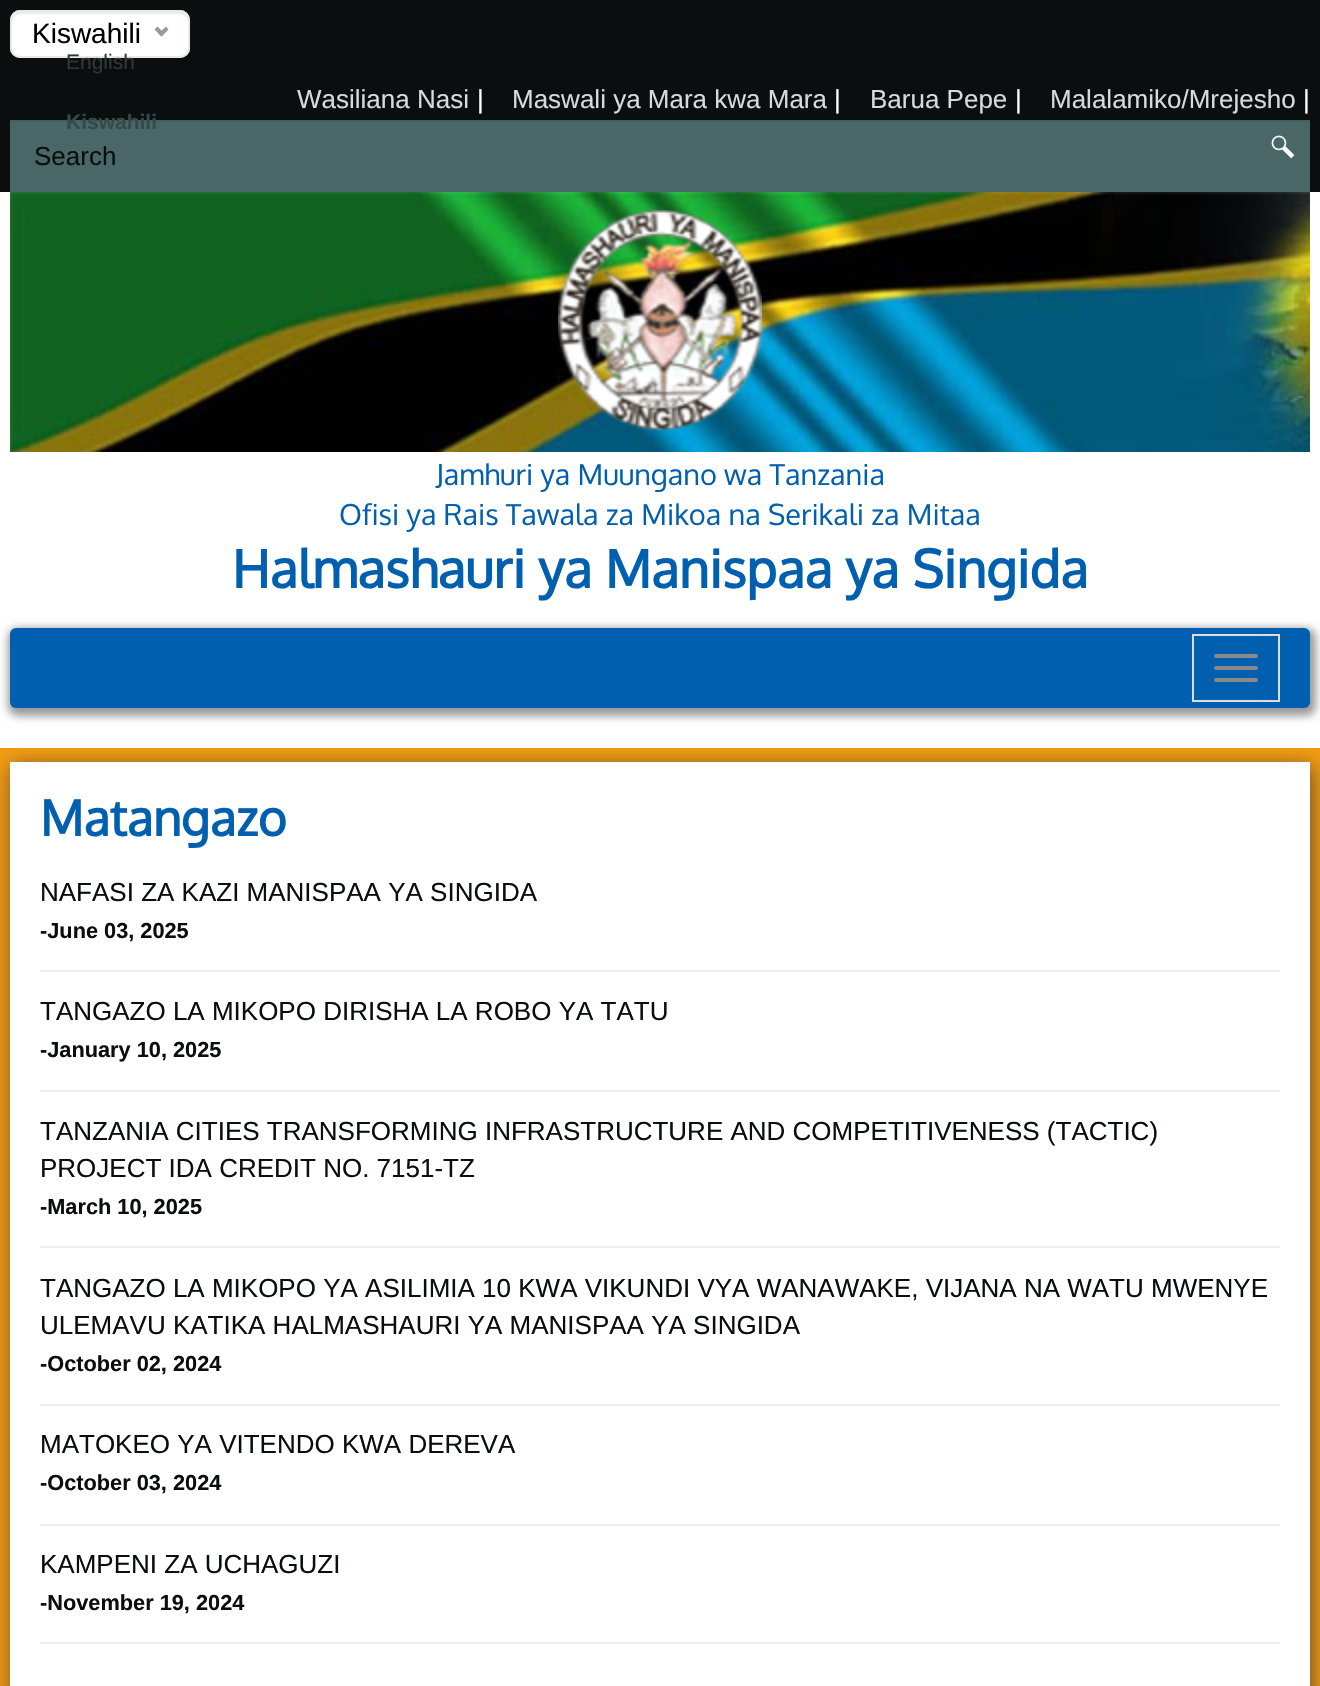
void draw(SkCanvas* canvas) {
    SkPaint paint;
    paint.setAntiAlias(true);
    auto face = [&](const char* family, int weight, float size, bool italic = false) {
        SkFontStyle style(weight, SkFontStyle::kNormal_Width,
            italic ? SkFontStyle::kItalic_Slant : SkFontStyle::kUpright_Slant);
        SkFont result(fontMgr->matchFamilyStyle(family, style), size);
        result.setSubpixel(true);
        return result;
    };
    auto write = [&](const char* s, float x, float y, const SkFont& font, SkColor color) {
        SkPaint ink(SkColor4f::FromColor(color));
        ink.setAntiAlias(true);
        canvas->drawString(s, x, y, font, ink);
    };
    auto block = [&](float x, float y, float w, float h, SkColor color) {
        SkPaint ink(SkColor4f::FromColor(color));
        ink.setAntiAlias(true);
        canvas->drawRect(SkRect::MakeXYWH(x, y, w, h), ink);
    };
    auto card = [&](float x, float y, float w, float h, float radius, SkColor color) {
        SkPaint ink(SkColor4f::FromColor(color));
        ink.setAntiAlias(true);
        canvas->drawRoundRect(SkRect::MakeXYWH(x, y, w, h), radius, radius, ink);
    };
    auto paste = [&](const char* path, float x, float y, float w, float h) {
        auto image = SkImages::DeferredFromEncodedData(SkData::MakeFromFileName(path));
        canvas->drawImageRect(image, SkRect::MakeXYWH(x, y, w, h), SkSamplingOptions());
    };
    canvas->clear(SkColorSetRGB(243, 156, 18));
    block(0, 0, 1320, 192, SkColorSetRGB(10, 14, 14));
    card(10, 10, 180, 48, 10, SK_ColorWHITE);
    paint.setColor(SkColorSetRGB(236, 236, 236));
    canvas->drawPath(SkPathBuilder().moveTo(20, 14).lineTo(180, 14).cubicTo(184, 14, 188, 18, 188, 22).lineTo(188, 20).cubicTo(188, 16, 184, 12, 180, 12).lineTo(20, 12).cubicTo(16, 12, 12, 16, 12, 20).lineTo(12, 22).cubicTo(12, 18, 16, 14, 20, 14).close().detach(), paint);
    paint.setStyle(SkPaint::kStroke_Style);
    paint.setStrokeWidth(2);
    paint.setColor(SkColorSetRGB(232, 232, 232));
    canvas->drawRoundRect(SkRect::MakeXYWH(11, 11, 178, 46), 9, 9, paint);
    auto kFont1 = face("Liberation Sans", 400, 28);
    write("Kiswahili", 32, 43, kFont1, SK_ColorBLACK);
    paint.setStyle(SkPaint::kFill_Style);
    paint.setColor(SkColorSetRGB(153, 153, 153));
    canvas->drawPath(SkPathBuilder().moveTo(166, 26.5f).lineTo(168.5f, 29.5f).lineTo(161.5f, 36.5f).lineTo(158.5f, 33.5f).close().detach(), paint);
    canvas->drawPath(SkPathBuilder().moveTo(157.5f, 26.5f).lineTo(164.5f, 33.5f).lineTo(161.5f, 36.5f).lineTo(154.5f, 29.5f).close().detach(), paint);
    auto kFont2 = face("Liberation Sans", 400, 21);
    write("English", 66, 69, kFont2, SkColorSetRGB(50, 54, 54));
    block(10, 122, 1300, 70, SkColorSetRGB(74, 103, 103));
    block(10, 120, 1300, 2, SkColorSetRGB(68, 95, 95));
    auto kFont3 = face("Liberation Sans", 700, 21);
    write("Kiswahili", 66, 129, kFont3, SkColorSetRGB(52, 73, 73));
    auto kFont4 = face("Liberation Sans", 400, 26);
    write("Wasiliana Nasi", 297, 108, kFont4, SkColorSetRGB(217, 217, 217));
    write("|", 477, 108, kFont4, SK_ColorWHITE);
    write("Maswali ya Mara kwa Mara", 512, 108, kFont4, SkColorSetRGB(217, 217, 217));
    write("|", 834, 108, kFont4, SK_ColorWHITE);
    write("Barua Pepe", 870, 108, kFont4, SkColorSetRGB(217, 217, 217));
    write("|", 1015, 108, kFont4, SK_ColorWHITE);
    write("Malalamiko/Mrejesho", 1050, 108, kFont4, SkColorSetRGB(217, 217, 217));
    write("|", 1303, 108, kFont4, SK_ColorWHITE);
    write("Search", 34, 165, kFont4, SkColorSetRGB(10, 14, 14));
    paste("pic1.png", 1271, 135, 24, 24);
    block(0, 192, 1320, 556, SK_ColorWHITE);
    paste("pic2.png", 10, 192, 1300, 260);
    paste("pic3.png", 558, 210, 204, 220);
    auto kFont5 = face("Oxygen", 400, 28.9f);
    write("Jamhuri ya Muungano wa Tanzania", 436, 485, kFont5, SkColorSetRGB(0, 95, 175));
    write("Ofisi ya Rais Tawala za Mikoa na Serikali za Mitaa", 339, 525, kFont5, SkColorSetRGB(0, 95, 175));
    auto kFont6 = face("Oxygen", 700, 52);
    write("Halmashauri ya Manispaa ya Singida", 232, 588, kFont6, SkColorSetRGB(0, 95, 175));
    paint.setMaskFilter(SkMaskFilter::MakeBlur(kNormal_SkBlurStyle, 4));
    canvas->drawRoundRect(SkRect::MakeXYWH(8, 628, 1308, 88), 10, 10, paint);
    paint.setMaskFilter(nullptr);
    card(10, 628, 1300, 80, 6, SkColorSetRGB(0, 95, 175));
    paint.setStyle(SkPaint::kStroke_Style);
    paint.setColor(SkColorSetRGB(221, 221, 221));
    canvas->drawRect(SkRect::MakeXYWH(1193, 635, 86, 66), paint);
    card(1214, 654, 44, 4, 2, SkColorSetRGB(136, 136, 136));
    card(1214, 666, 44, 4, 2, SkColorSetRGB(136, 136, 136));
    card(1214, 678, 44, 4, 2, SkColorSetRGB(136, 136, 136));
    paint.setStyle(SkPaint::kFill_Style);
    paint.setColor(SkColorSetARGB(191, 50, 50, 50));
    paint.setMaskFilter(SkMaskFilter::MakeBlur(kNormal_SkBlurStyle, 10));
    canvas->drawRect(SkRect::MakeXYWH(12, 766, 1300, 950), paint);
    paint.setMaskFilter(nullptr);
    block(10, 762, 1300, 924, SK_ColorWHITE);
    auto kFont7 = face("Oxygen", 700, 49);
    write("Matangazo", 40, 836, kFont7, SkColorSetRGB(0, 95, 175));
    block(40, 970, 1240, 2, SkColorSetRGB(238, 238, 238));
    write("NAFASI ZA KAZI MANISPAA YA SINGIDA", 40, 901, kFont4, SkColorSetRGB(10, 14, 14));
    auto kFont8 = face("Liberation Sans", 700, 21.75f);
    write("-June 03, 2025", 40, 938, kFont8, SkColorSetRGB(10, 14, 14));
    block(40, 1090, 1240, 2, SkColorSetRGB(238, 238, 238));
    write("TANGAZO LA MIKOPO DIRISHA LA ROBO YA TATU", 40, 1020, kFont4, SkColorSetRGB(10, 14, 14));
    write("-January 10, 2025", 40, 1057, kFont8, SkColorSetRGB(10, 14, 14));
    block(40, 1246, 1240, 2, SkColorSetRGB(238, 238, 238));
    write("TANZANIA CITIES TRANSFORMING INFRASTRUCTURE AND COMPETITIVENESS (TACTIC)", 40, 1140, kFont4, SkColorSetRGB(10, 14, 14));
    write("PROJECT IDA CREDIT NO. 7151-TZ", 40, 1177, kFont4, SkColorSetRGB(10, 14, 14));
    write("-March 10, 2025", 40, 1214, kFont8, SkColorSetRGB(10, 14, 14));
    block(40, 1404, 1240, 2, SkColorSetRGB(238, 238, 238));
    write("TANGAZO LA MIKOPO YA ASILIMIA 10 KWA VIKUNDI VYA WANAWAKE, VIJANA NA WATU MWENYE", 40, 1297, kFont4, SkColorSetRGB(10, 14, 14));
    write("ULEMAVU KATIKA HALMASHAURI YA MANISPAA YA SINGIDA", 40, 1334, kFont4, SkColorSetRGB(10, 14, 14));
    write("-October 02, 2024", 40, 1371, kFont8, SkColorSetRGB(10, 14, 14));
    block(40, 1524, 1240, 2, SkColorSetRGB(238, 238, 238));
    write("MATOKEO YA VITENDO KWA DEREVA", 40, 1453, kFont4, SkColorSetRGB(10, 14, 14));
    write("-October 03, 2024", 40, 1490, kFont8, SkColorSetRGB(10, 14, 14));
    block(40, 1642, 1240, 2, SkColorSetRGB(238, 238, 238));
    write("KAMPENI ZA UCHAGUZI", 40, 1573, kFont4, SkColorSetRGB(10, 14, 14));
    write("-November 19, 2024", 40, 1610, kFont8, SkColorSetRGB(10, 14, 14));
}
